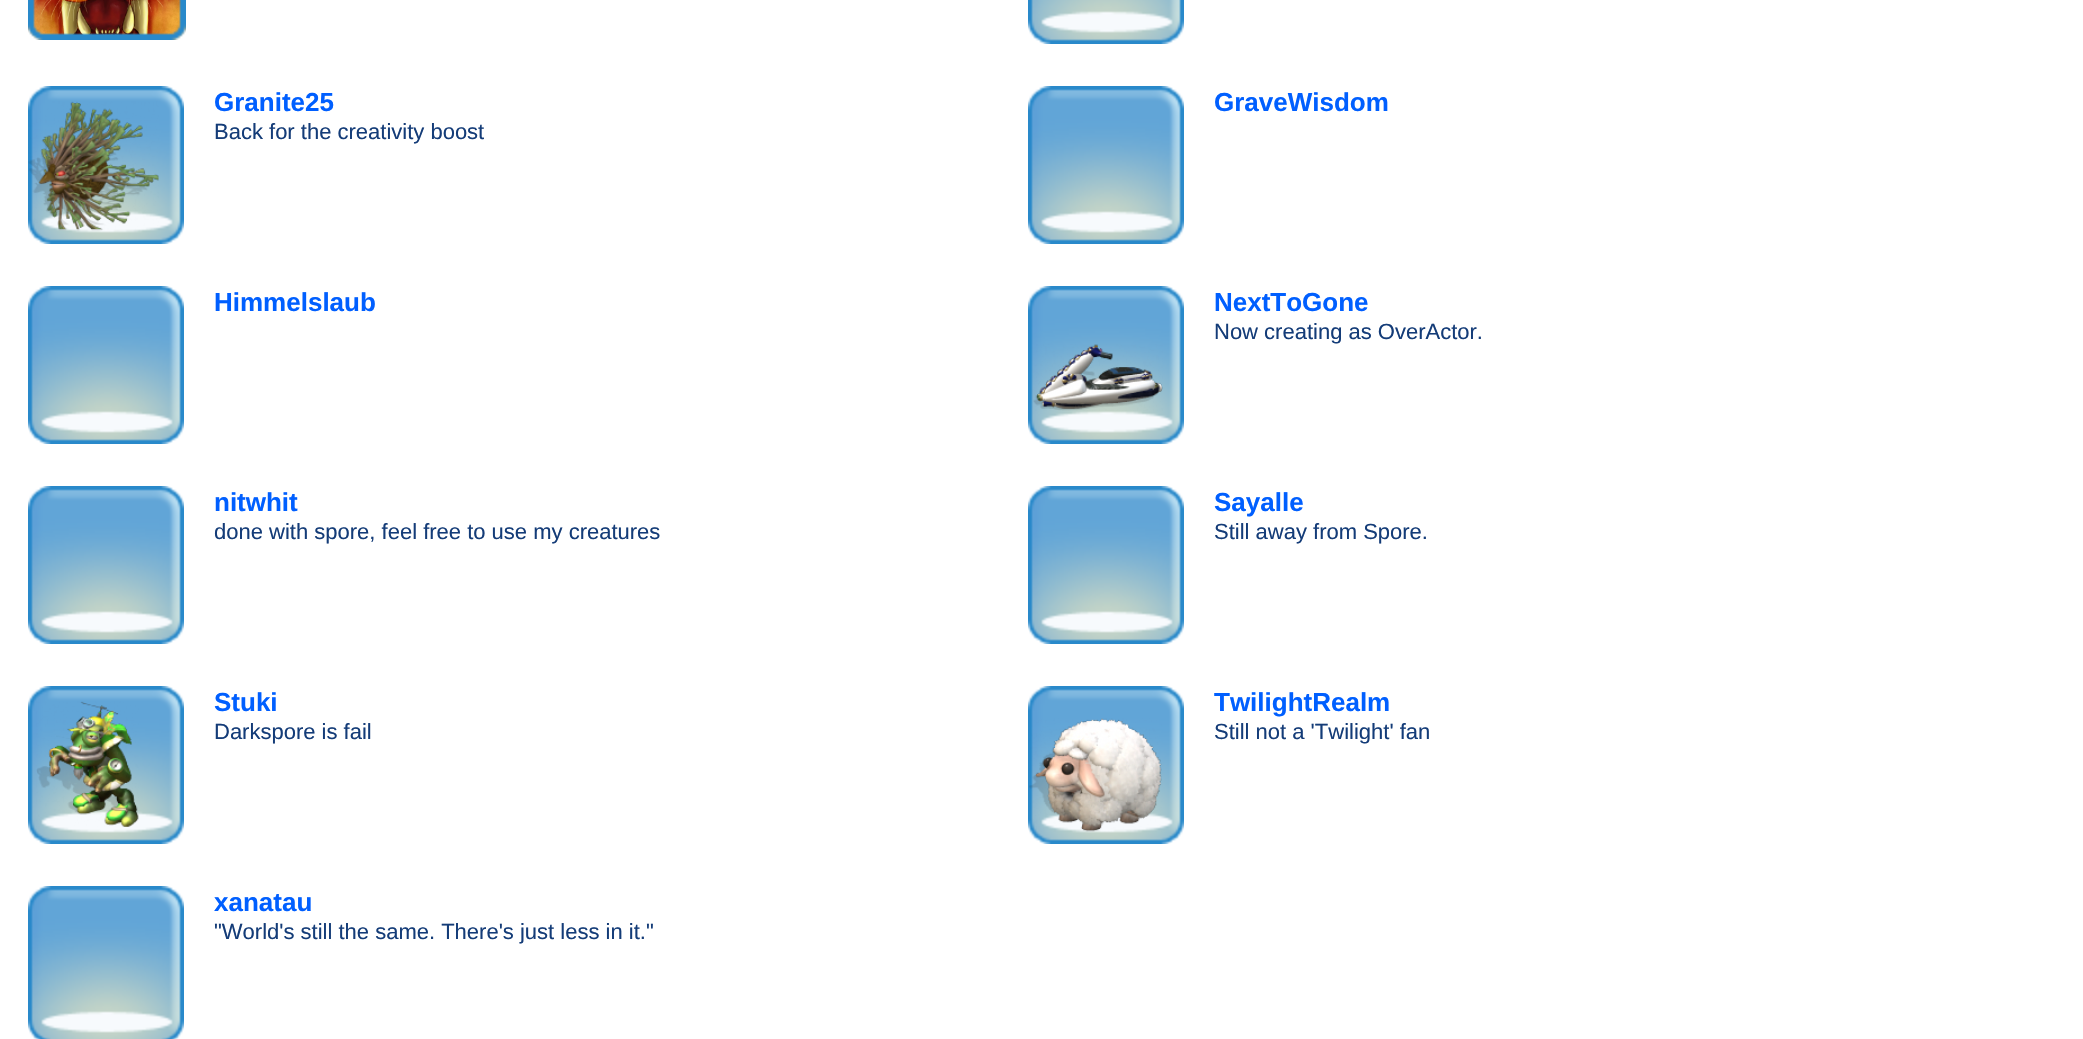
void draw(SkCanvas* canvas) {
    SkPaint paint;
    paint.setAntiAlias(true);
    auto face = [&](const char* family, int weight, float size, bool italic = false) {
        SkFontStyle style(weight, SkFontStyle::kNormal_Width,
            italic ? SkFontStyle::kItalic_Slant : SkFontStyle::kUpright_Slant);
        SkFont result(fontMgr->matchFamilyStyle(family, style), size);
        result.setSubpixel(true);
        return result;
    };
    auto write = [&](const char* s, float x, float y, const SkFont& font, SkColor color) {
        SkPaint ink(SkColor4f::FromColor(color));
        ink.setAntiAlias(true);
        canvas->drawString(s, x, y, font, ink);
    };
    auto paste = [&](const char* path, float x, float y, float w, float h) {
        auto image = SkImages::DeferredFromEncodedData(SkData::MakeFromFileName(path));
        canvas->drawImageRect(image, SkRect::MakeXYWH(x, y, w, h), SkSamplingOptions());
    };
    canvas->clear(SK_ColorWHITE);
    paste("pic1.png", 28, 0, 158, 40);
    paste("pic2.png", 28, 0, 158, 40);
    paste("pic3.png", 1028, 0, 156, 44);
    paste("pic4.png", 28, 86, 156, 158);
    paste("pic5.png", 28, 101, 131, 130);
    auto kFont1 = face("Liberation Sans", 700, 26);
    write("Granite25", 214, 111, kFont1, SkColorSetRGB(0, 95, 255));
    auto kFont2 = face("Liberation Sans", 400, 22);
    write("Back for the creativity boost", 214, 139, kFont2, SkColorSetRGB(20, 60, 120));
    paste("pic4.png", 1028, 86, 156, 158);
    write("GraveWisdom", 1214, 111, kFont1, SkColorSetRGB(0, 95, 255));
    paste("pic4.png", 28, 286, 156, 158);
    write("Himmelslaub", 214, 311, kFont1, SkColorSetRGB(0, 95, 255));
    paste("pic4.png", 1028, 286, 156, 158);
    paste("pic6.png", 1033, 344, 130, 67);
    write("NextToGone", 1214, 311, kFont1, SkColorSetRGB(0, 95, 255));
    write("Now creating as OverActor.", 1214, 339, kFont2, SkColorSetRGB(20, 60, 120));
    paste("pic4.png", 28, 486, 156, 158);
    write("nitwhit", 214, 511, kFont1, SkColorSetRGB(0, 95, 255));
    write("done with spore, feel free to use my creatures", 214, 539, kFont2, SkColorSetRGB(20, 60, 120));
    paste("pic4.png", 1028, 486, 156, 158);
    write("Sayalle", 1214, 511, kFont1, SkColorSetRGB(0, 95, 255));
    write("Still away from Spore.", 1214, 539, kFont2, SkColorSetRGB(20, 60, 120));
    paste("pic4.png", 28, 686, 156, 158);
    paste("pic7.png", 36, 701, 103, 126);
    write("Stuki", 214, 711, kFont1, SkColorSetRGB(0, 95, 255));
    write("Darkspore is fail", 214, 739, kFont2, SkColorSetRGB(20, 60, 120));
    paste("pic4.png", 1028, 686, 156, 158);
    paste("pic8.png", 1029, 718, 133, 114);
    write("TwilightRealm", 1214, 711, kFont1, SkColorSetRGB(0, 95, 255));
    write("Still not a 'Twilight' fan", 1214, 739, kFont2, SkColorSetRGB(20, 60, 120));
    paste("pic9.png", 28, 886, 156, 153);
    write("xanatau", 214, 911, kFont1, SkColorSetRGB(0, 95, 255));
    write("\"World's still the same. There's just less in it.\"", 214, 939, kFont2, SkColorSetRGB(20, 60, 120));
}
